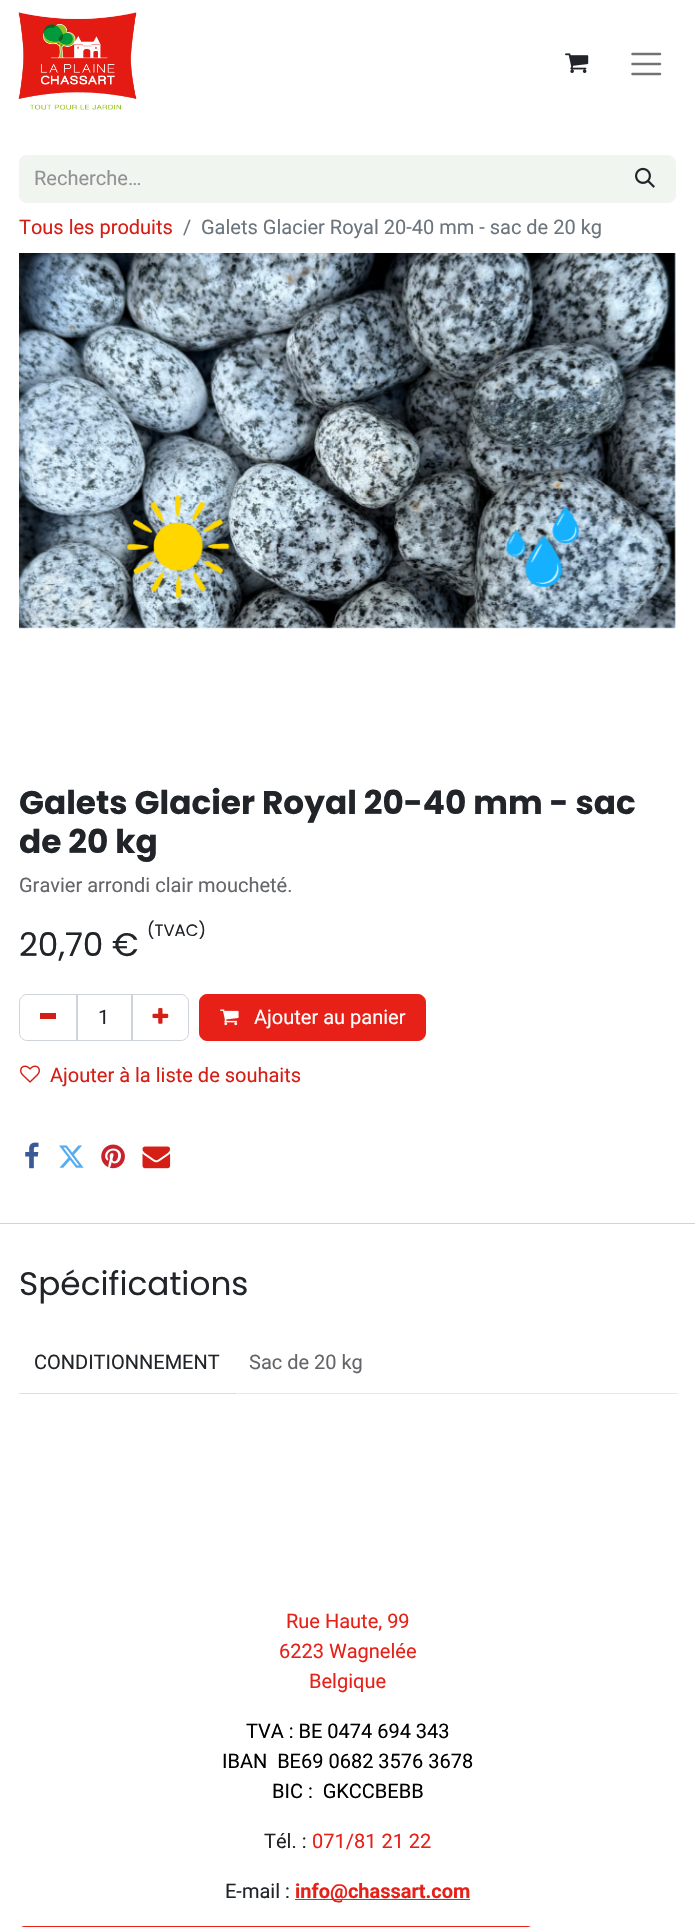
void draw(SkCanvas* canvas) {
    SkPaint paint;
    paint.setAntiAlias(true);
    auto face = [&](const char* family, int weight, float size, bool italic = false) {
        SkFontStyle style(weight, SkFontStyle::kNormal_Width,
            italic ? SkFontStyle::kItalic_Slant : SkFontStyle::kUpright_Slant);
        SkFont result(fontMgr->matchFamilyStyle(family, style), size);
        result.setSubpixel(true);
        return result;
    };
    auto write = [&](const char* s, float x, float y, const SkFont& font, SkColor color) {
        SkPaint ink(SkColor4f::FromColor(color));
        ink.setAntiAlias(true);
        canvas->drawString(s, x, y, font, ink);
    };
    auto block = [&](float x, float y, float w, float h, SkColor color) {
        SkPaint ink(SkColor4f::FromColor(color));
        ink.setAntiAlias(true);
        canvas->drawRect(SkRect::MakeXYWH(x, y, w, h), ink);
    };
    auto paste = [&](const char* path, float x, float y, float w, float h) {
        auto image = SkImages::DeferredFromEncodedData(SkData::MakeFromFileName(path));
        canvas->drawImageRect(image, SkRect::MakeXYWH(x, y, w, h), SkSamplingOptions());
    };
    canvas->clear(SK_ColorWHITE);
    block(19, 1393, 216, 1, SkColorSetRGB(222, 222, 223));
    paste("pic1.png", 18, 12, 119, 98);
    paste("pic2.png", 565, 53, 24, 20);
    paint.setStyle(SkPaint::kStroke_Style);
    paint.setStrokeWidth(2.5f);
    paint.setStrokeCap(SkPaint::kRound_Cap);
    paint.setColor(SkColorSetRGB(115, 115, 115));
    canvas->drawPath(SkPathBuilder().moveTo(632.5f, 54).lineTo(660, 54).moveTo(632.5f, 64).lineTo(660, 64).moveTo(632.5f, 74).lineTo(660, 74).detach(), paint);
    paint.setStyle(SkPaint::kFill_Style);
    paint.setColor(SkColorSetRGB(241, 245, 240));
    canvas->drawPath(SkPathBuilder().moveTo(27, 155).lineTo(615, 155).lineTo(615, 203).lineTo(27, 203).cubicTo(22.5f, 203, 19, 199.5f, 19, 195).lineTo(19, 163).cubicTo(19, 158.5f, 22.5f, 155, 27, 155).close().detach(), paint);
    auto kFont1 = face("Roboto", 400, 20);
    write("Recherche…", 34, 185, kFont1, SkColorSetRGB(144, 146, 148));
    canvas->drawPath(SkPathBuilder().moveTo(614.5f, 155.5f).lineTo(668, 155.5f).cubicTo(672, 155.5f, 675.5f, 159, 675.5f, 163).lineTo(675.5f, 195).cubicTo(675.5f, 199, 672, 202.5f, 668, 202.5f).lineTo(614.5f, 202.5f).close().detach(), paint);
    paint.setStyle(SkPaint::kStroke_Style);
    paint.setStrokeWidth(1);
    paint.setStrokeCap(SkPaint::kButt_Cap);
    canvas->drawPath(SkPathBuilder().moveTo(614.5f, 155.5f).lineTo(668, 155.5f).cubicTo(672, 155.5f, 675.5f, 159, 675.5f, 163).lineTo(675.5f, 195).cubicTo(675.5f, 199, 672, 202.5f, 668, 202.5f).lineTo(614.5f, 202.5f).close().detach(), paint);
    paste("pic3.png", 635, 167, 20, 21);
    write("Tous les produits", 19, 234, kFont1, SkColorSetRGB(213, 30, 22));
    write("/", 183, 234, kFont1, SkColorSetRGB(108, 117, 125));
    write("Galets Glacier Royal 20-40 mm - sac de 20 kg", 201, 234, kFont1, SkColorSetRGB(108, 117, 125));
    paste("pic4.png", 19, 253, 657, 376);
    auto kFont2 = face("Poppins", 700, 32.75f);
    write("Galets Glacier Royal 20-40 mm - sac", 19, 814, kFont2, SkColorSetRGB(33, 37, 41));
    write("de 20 kg", 19, 853, kFont2, SkColorSetRGB(33, 37, 41));
    write("Gravier arrondi clair moucheté.", 19, 892, kFont1, SkColorSetRGB(100, 102, 105));
    auto kFont3 = face("Poppins", 400, 32.75f);
    write("20,70 €", 19, 956, kFont3, SkColorSetRGB(33, 37, 41));
    auto kFont4 = face("Poppins", 400, 16.5f);
    write("(TVAC)", 147, 936, kFont4, SkColorSetRGB(33, 37, 41));
    paint.setColor(SkColorSetRGB(206, 212, 218));
    canvas->drawRect(SkRect::MakeXYWH(76.5f, 994.5f, 56, 46), paint);
    canvas->drawPath(SkPathBuilder().moveTo(27, 994.5f).lineTo(77.5f, 994.5f).lineTo(77.5f, 1040.5f).lineTo(27, 1040.5f).cubicTo(23, 1040.5f, 19.5f, 1037, 19.5f, 1033).lineTo(19.5f, 1002).cubicTo(19.5f, 998, 23, 994.5f, 27, 994.5f).close().detach(), paint);
    block(40, 1013, 16, 6, SkColorSetRGB(213, 30, 22));
    write("1", 98, 1024, kFont1, SkColorSetRGB(33, 37, 41));
    canvas->drawPath(SkPathBuilder().moveTo(131.5f, 994.5f).lineTo(181, 994.5f).cubicTo(185, 994.5f, 188.5f, 998, 188.5f, 1002).lineTo(188.5f, 1033).cubicTo(188.5f, 1037, 185, 1040.5f, 181, 1040.5f).lineTo(131.5f, 1040.5f).close().detach(), paint);
    paste("pic5.png", 152, 1008, 17, 16);
    paint.setStyle(SkPaint::kFill_Style);
    paint.setColor(SkColorSetRGB(231, 33, 24));
    canvas->drawRoundRect(SkRect::MakeXYWH(199.5f, 994.5f, 226, 46), 7.5f, 7.5f, paint);
    paint.setStyle(SkPaint::kStroke_Style);
    canvas->drawRoundRect(SkRect::MakeXYWH(199.5f, 994.5f, 226, 46), 7.5f, 7.5f, paint);
    paste("pic6.png", 220, 1009, 19, 17);
    write("Ajouter au panier", 254, 1024, kFont1, SK_ColorWHITE);
    paste("pic7.png", 20, 1065, 20, 18);
    write("Ajouter à la liste de souhaits", 50, 1082, kFont1, SkColorSetRGB(213, 30, 22));
    paste("pic8.png", 25, 1142, 14, 27);
    paste("pic9.png", 59, 1145, 25, 23);
    paste("pic10.png", 101, 1144, 24, 25);
    paste("pic11.png", 142, 1146, 29, 23);
    block(0, 1223, 695, 1, SkColorSetRGB(206, 212, 218));
    write("Spécifications", 19, 1295, kFont3, SkColorSetRGB(33, 37, 41));
    write("CONDITIONNEMENT", 34, 1369, kFont1, SkColorSetRGB(33, 37, 41));
    block(234, 1393, 444, 1, SkColorSetRGB(232, 232, 232));
    block(234, 1393, 1, 1, SkColorSetRGB(202, 203, 203));
    write("Sac de 20 kg", 249, 1369, kFont1, SkColorSetRGB(100, 102, 105));
    write("Rue Haute, 99", 286, 1628, kFont1, SkColorSetRGB(231, 33, 24));
    write("6223 Wagnelée", 279, 1658, kFont1, SkColorSetRGB(231, 33, 24));
    write("Belgique", 309, 1688, kFont1, SkColorSetRGB(231, 33, 24));
    write("TVA : BE 0474 694 343", 246, 1738, kFont1, SK_ColorBLACK);
    write("IBAN  BE69 0682 3576 3678", 222, 1768, kFont1, SK_ColorBLACK);
    write("BIC :  GKCCBEBB", 272, 1798, kFont1, SK_ColorBLACK);
    write("Tél. :", 264, 1848, kFont1, SkColorSetRGB(33, 37, 41));
    write("071/81 21 22", 312, 1848, kFont1, SkColorSetRGB(231, 33, 24));
    write("E-mail :", 225, 1898, kFont1, SkColorSetRGB(33, 37, 41));
    block(295, 1899, 175, 1, SkColorSetRGB(231, 33, 24));
    auto kFont5 = face("Roboto", 700, 20);
    write("info@chassart.com", 295, 1898, kFont5, SkColorSetRGB(231, 33, 24));
    canvas->drawRoundRect(SkRect::MakeXYWH(19.5f, 1926.5f, 513, 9), 7.5f, 7.5f, paint);
}
